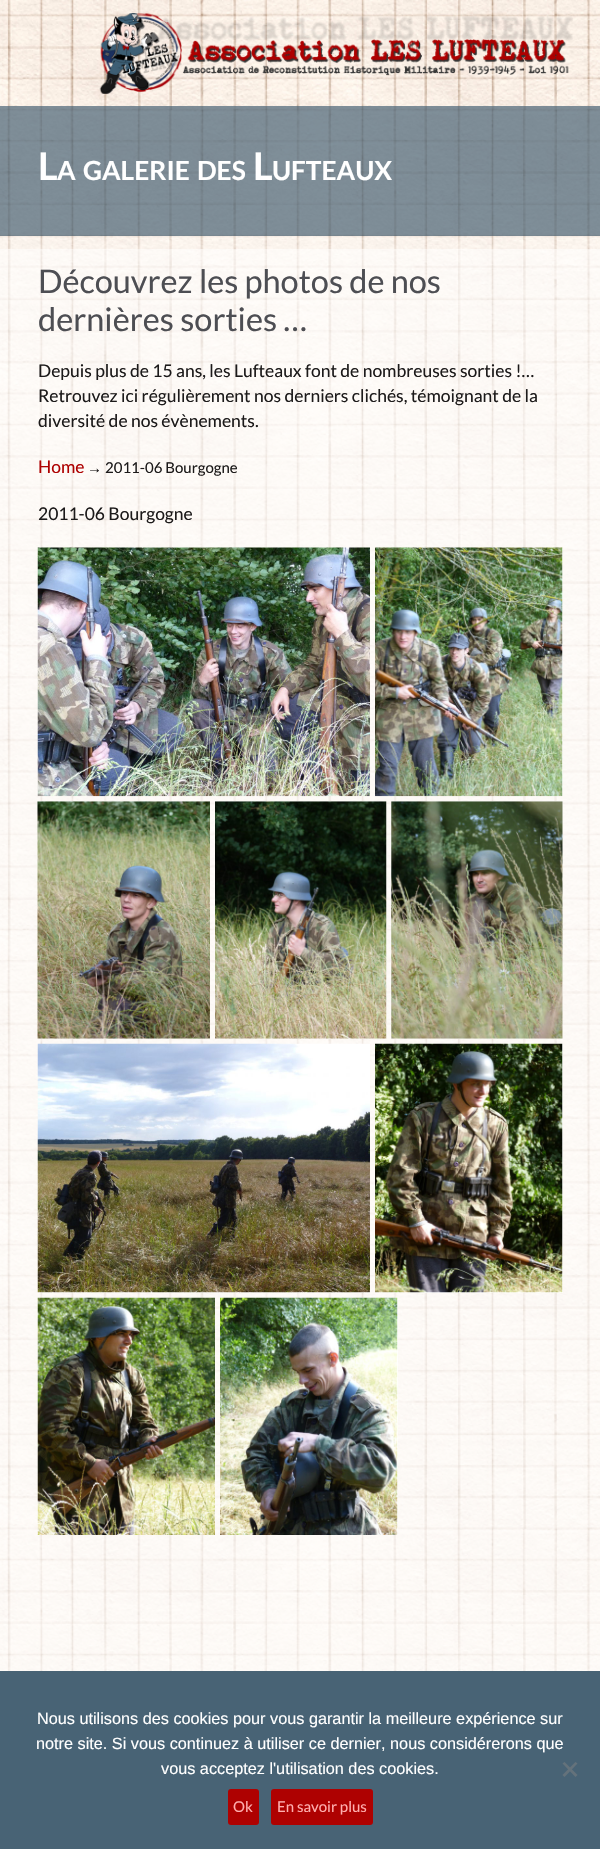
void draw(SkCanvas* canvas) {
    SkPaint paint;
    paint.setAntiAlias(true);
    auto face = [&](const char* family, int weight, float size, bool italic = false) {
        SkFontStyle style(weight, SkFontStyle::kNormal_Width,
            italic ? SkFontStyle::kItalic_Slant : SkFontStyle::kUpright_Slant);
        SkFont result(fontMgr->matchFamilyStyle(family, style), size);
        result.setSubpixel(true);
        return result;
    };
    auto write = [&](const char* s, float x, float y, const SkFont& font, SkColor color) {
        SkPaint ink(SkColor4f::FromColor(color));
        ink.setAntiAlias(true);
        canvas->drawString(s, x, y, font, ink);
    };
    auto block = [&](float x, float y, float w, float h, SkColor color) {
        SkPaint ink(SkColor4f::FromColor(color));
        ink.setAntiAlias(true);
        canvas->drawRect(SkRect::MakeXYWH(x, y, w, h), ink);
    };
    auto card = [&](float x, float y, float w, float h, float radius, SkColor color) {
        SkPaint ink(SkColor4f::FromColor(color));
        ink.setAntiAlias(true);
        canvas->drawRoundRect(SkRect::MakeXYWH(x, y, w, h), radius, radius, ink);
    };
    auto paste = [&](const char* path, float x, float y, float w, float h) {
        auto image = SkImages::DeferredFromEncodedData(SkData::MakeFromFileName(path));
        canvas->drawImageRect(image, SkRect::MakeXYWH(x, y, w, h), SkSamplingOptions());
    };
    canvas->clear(SK_ColorWHITE);
    paste("pic1.png", 0, 0, 600, 1671);
    paste("pic2.png", 99, 13, 474, 81);
    block(0, 106, 600, 130, SkColorSetARGB(179, 72, 99, 117));
    auto kFont1 = face("Lato", 700, 38);
    write("L", 38, 180, kFont1, SK_ColorWHITE);
    auto kFont2 = face("Lato", 700, 26.25f);
    write("A", 57, 180, kFont2, SK_ColorWHITE);
    write("GALERIE", 83, 180, kFont2, SK_ColorWHITE);
    write("DES", 197, 180, kFont2, SK_ColorWHITE);
    write("L", 253, 180, kFont1, SK_ColorWHITE);
    write("UFTEAUX", 272, 180, kFont2, SK_ColorWHITE);
    block(0, 236, 600, 1435, SkColorSetARGB(77, 255, 255, 255));
    block(0, 249, 600, 1422, SkColorSetARGB(128, 255, 255, 255));
    auto kFont3 = face("Lato", 400, 32.5f);
    write("Découvrez les photos de nos", 38, 293, kFont3, SkColorSetRGB(77, 78, 83));
    write("dernières sorties …", 38, 331, kFont3, SkColorSetRGB(77, 78, 83));
    auto kFont4 = face("Lato", 400, 17.5f);
    write("Depuis plus de 15 ans, les Lufteaux font de nombreuses sorties !…", 38, 377, kFont4, SkColorSetRGB(28, 26, 26));
    write("Retrouvez ici régulièrement nos derniers clichés, témoignant de la", 38, 402, kFont4, SkColorSetRGB(28, 26, 26));
    write("diversité de nos évènements.", 38, 427, kFont4, SkColorSetRGB(28, 26, 26));
    write("Home", 38, 473, kFont4, SkColorSetRGB(174, 1, 1));
    auto kFont5 = face("Liberation Serif", 400, 15);
    write("→", 87, 473, kFont5, SkColorSetRGB(28, 26, 26));
    auto kFont6 = face("Lato", 400, 15);
    write("2011-06 Bourgogne", 105, 473, kFont6, SkColorSetRGB(28, 26, 26));
    write("2011-06 Bourgogne", 38, 520, kFont4, SkColorSetRGB(28, 26, 26));
    paste("pic3.png", 37, 547, 333, 250);
    block(562, 548, 1, 248, SK_ColorWHITE);
    paste("pic4.png", 375, 547, 188, 250);
    block(38, 801, 172, 238, SK_ColorWHITE);
    paste("pic5.png", 37, 801, 173, 238);
    block(215, 801, 171, 238, SK_ColorWHITE);
    paste("pic6.png", 215, 801, 172, 238);
    block(391, 801, 172, 238, SK_ColorWHITE);
    paste("pic7.png", 391, 801, 172, 238);
    block(38, 1292, 332, 1, SK_ColorWHITE);
    paste("pic8.png", 37, 1043, 333, 250);
    block(375, 1044, 188, 249, SK_ColorWHITE);
    paste("pic9.png", 375, 1043, 188, 250);
    paste("pic10.png", 37, 1297, 178, 238);
    block(397, 1298, 1, 237, SK_ColorWHITE);
    paste("pic11.png", 220, 1297, 178, 238);
    block(0, 1671, 600, 178, SkColorSetRGB(72, 99, 117));
    auto kFont7 = face("Liberation Sans", 400, 16.25f);
    write("Nous utilisons des cookies pour vous garantir la meilleure expérience sur", 37, 1724, kFont7, SK_ColorWHITE);
    write("notre site. Si vous continuez à utiliser ce dernier, nous considérerons que", 36, 1749, kFont7, SK_ColorWHITE);
    write("vous acceptez l'utilisation des cookies.", 161, 1774, kFont7, SK_ColorWHITE);
    paint.setColor(SkColorSetRGB(100, 114, 123));
    canvas->drawPath(SkPathBuilder().moveTo(575.5f, 1762).lineTo(577.5f, 1763.5f).lineTo(564.5f, 1777).lineTo(562.5f, 1775).close().detach(), paint);
    canvas->drawPath(SkPathBuilder().moveTo(562.5f, 1763.5f).lineTo(564.5f, 1762).lineTo(577.5f, 1775).lineTo(575.5f, 1777).close().detach(), paint);
    card(228, 1789, 31, 36, 3, SkColorSetRGB(174, 1, 1));
    write("Ok", 233, 1812, kFont6, SkColorSetRGB(255, 175, 175));
    card(271, 1789, 102, 36, 3, SkColorSetRGB(174, 1, 1));
    write("En savoir plus", 277, 1812, kFont6, SkColorSetRGB(255, 175, 175));
}
